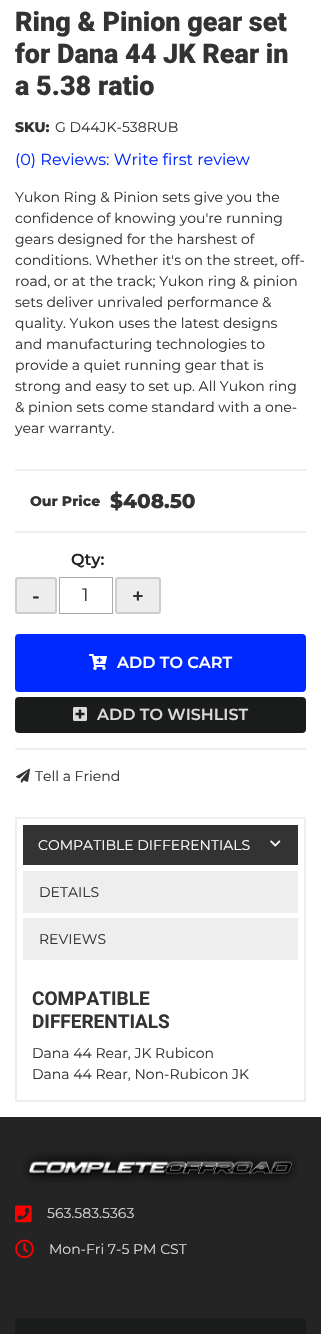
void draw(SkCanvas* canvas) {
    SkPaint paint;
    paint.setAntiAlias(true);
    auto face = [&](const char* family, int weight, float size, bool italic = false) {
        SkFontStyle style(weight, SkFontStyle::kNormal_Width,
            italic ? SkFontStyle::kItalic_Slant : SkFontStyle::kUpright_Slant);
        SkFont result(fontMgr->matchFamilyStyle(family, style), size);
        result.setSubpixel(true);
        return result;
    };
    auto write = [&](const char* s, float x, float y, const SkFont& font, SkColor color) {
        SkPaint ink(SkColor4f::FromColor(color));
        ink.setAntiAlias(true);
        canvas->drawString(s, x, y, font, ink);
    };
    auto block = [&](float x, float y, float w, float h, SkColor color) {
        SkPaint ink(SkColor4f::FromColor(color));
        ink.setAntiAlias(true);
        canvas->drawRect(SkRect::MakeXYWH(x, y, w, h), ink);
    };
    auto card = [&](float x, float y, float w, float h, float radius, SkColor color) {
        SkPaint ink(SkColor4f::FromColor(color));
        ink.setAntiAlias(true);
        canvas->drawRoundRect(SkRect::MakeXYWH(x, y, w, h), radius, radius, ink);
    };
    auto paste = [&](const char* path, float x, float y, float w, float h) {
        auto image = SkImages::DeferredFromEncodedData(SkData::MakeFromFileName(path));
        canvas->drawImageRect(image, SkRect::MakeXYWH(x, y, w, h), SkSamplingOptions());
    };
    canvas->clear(SK_ColorWHITE);
    auto kFont1 = face("Roboto", 900, 27);
    write("Ring & Pinion gear set", 15, 31, kFont1, SkColorSetRGB(51, 51, 51));
    write("for Dana 44 JK Rear in", 15, 63, kFont1, SkColorSetRGB(51, 51, 51));
    write("a 5.38 ratio", 15, 95, kFont1, SkColorSetRGB(51, 51, 51));
    auto kFont2 = face("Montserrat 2", 100, 14);
    write("SKU:", 15, 132, kFont2, SkColorSetRGB(51, 51, 51));
    auto kFont3 = face("Montserrat", 100, 14);
    write("G D44JK-538RUB", 55, 132, kFont3, SkColorSetRGB(51, 51, 51));
    auto kFont4 = face("Montserrat", 100, 16);
    write("(0) Reviews: Write first review", 15, 165, kFont4, SkColorSetRGB(0, 41, 255));
    write("Yukon Ring & Pinion sets give you the", 15, 202, kFont3, SkColorSetRGB(51, 51, 51));
    write("confidence of knowing you're running", 15, 223, kFont3, SkColorSetRGB(51, 51, 51));
    write("gears designed for the harshest of", 15, 244, kFont3, SkColorSetRGB(51, 51, 51));
    write("conditions. Whether it's on the street, off-", 15, 265, kFont3, SkColorSetRGB(51, 51, 51));
    write("road, or at the track; Yukon ring & pinion", 15, 286, kFont3, SkColorSetRGB(51, 51, 51));
    write("sets deliver unrivaled performance &", 15, 307, kFont3, SkColorSetRGB(51, 51, 51));
    write("quality. Yukon uses the latest designs", 15, 328, kFont3, SkColorSetRGB(51, 51, 51));
    write("and manufacturing technologies to", 15, 349, kFont3, SkColorSetRGB(51, 51, 51));
    write("provide a quiet running gear that is", 15, 370, kFont3, SkColorSetRGB(51, 51, 51));
    write("strong and easy to set up. All Yukon ring", 15, 391, kFont3, SkColorSetRGB(51, 51, 51));
    write("& pinion sets come standard with a one-", 15, 412, kFont3, SkColorSetRGB(51, 51, 51));
    write("year warranty.", 15, 433, kFont3, SkColorSetRGB(51, 51, 51));
    block(15, 469, 291, 2, SkColorSetRGB(238, 238, 238));
    block(15, 531, 291, 2, SkColorSetRGB(238, 238, 238));
    write("Our Price", 30, 506, kFont2, SkColorSetRGB(51, 51, 51));
    auto kFont5 = face("Montserrat 2", 100, 20);
    write("$408.50", 110, 508, kFont5, SkColorSetRGB(51, 51, 51));
    block(15, 748, 291, 2, SkColorSetRGB(238, 238, 238));
    auto kFont6 = face("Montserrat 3", 100, 16);
    write("Qty:", 71, 565, kFont6, SkColorSetRGB(34, 35, 37));
    paint.setColor(SkColorSetRGB(237, 237, 237));
    canvas->drawRoundRect(SkRect::MakeXYWH(16, 578, 40, 35), 2, 2, paint);
    paint.setStyle(SkPaint::kStroke_Style);
    paint.setStrokeWidth(2);
    paint.setColor(SkColorSetRGB(206, 206, 206));
    canvas->drawRoundRect(SkRect::MakeXYWH(16, 578, 40, 35), 2, 2, paint);
    auto kFont7 = face("Montserrat 3", 100, 20);
    write("-", 32, 603, kFont7, SkColorSetRGB(51, 51, 51));
    paint.setStrokeWidth(1);
    paint.setColor(SkColorSetRGB(170, 170, 170));
    canvas->drawRect(SkRect::MakeXYWH(59.5f, 577.5f, 53, 36), paint);
    auto kFont8 = face("Montserrat", 100, 18);
    write("1", 82, 601, kFont8, SkColorSetRGB(51, 51, 51));
    paint.setStyle(SkPaint::kFill_Style);
    paint.setColor(SkColorSetRGB(237, 237, 237));
    canvas->drawRoundRect(SkRect::MakeXYWH(116, 578, 44, 35), 2, 2, paint);
    paint.setStyle(SkPaint::kStroke_Style);
    paint.setStrokeWidth(2);
    paint.setColor(SkColorSetRGB(206, 206, 206));
    canvas->drawRoundRect(SkRect::MakeXYWH(116, 578, 44, 35), 2, 2, paint);
    write("+", 132, 603, kFont7, SkColorSetRGB(51, 51, 51));
    paint.setStyle(SkPaint::kFill_Style);
    paint.setColor(SkColorSetRGB(0, 41, 255));
    canvas->drawRoundRect(SkRect::MakeXYWH(16, 635, 289, 56), 3, 3, paint);
    paint.setStyle(SkPaint::kStroke_Style);
    canvas->drawRoundRect(SkRect::MakeXYWH(16, 635, 289, 56), 3, 3, paint);
    paste("pic1.png", 89, 654, 18, 16);
    write("ADD TO CART", 117, 668, kFont6, SK_ColorWHITE);
    card(15, 697, 291, 36, 4, SkColorSetRGB(26, 27, 27));
    paste("pic2.png", 73, 707, 14, 14);
    write("ADD TO WISHLIST", 97, 720, kFont6, SkColorSetRGB(218, 218, 218));
    paste("pic3.png", 16, 768, 14, 15);
    write("Tell a Friend", 35, 781, kFont3, SkColorSetRGB(51, 51, 51));
    block(15, 817, 291, 2, SkColorSetRGB(238, 238, 238));
    block(304, 817, 2, 285, SkColorSetRGB(238, 238, 238));
    block(15, 817, 2, 155, SkColorSetRGB(238, 238, 238));
    block(23, 825, 275, 40, SkColorSetRGB(51, 51, 51));
    write("COMPATIBLE DIFFERENTIALS", 38, 850, kFont3, SK_ColorWHITE);
    paste("pic4.png", 270, 840, 11, 7);
    block(23, 871, 275, 42, SkColorSetRGB(238, 238, 238));
    write("DETAILS", 39, 897, kFont3, SkColorSetRGB(51, 51, 51));
    block(23, 918, 275, 42, SkColorSetRGB(238, 238, 238));
    write("REVIEWS", 39, 944, kFont3, SkColorSetRGB(51, 51, 51));
    block(15, 1100, 291, 2, SkColorSetRGB(238, 238, 238));
    block(15, 972, 2, 130, SkColorSetRGB(238, 238, 238));
    auto kFont9 = face("Roboto", 700, 19);
    write("COMPATIBLE", 32, 1005, kFont9, SkColorSetRGB(51, 51, 51));
    write("DIFFERENTIALS", 32, 1028, kFont9, SkColorSetRGB(51, 51, 51));
    write("Dana 44 Rear, JK Rubicon", 32, 1058, kFont3, SkColorSetRGB(51, 51, 51));
    write("Dana 44 Rear, Non-Rubicon JK", 32, 1079, kFont3, SkColorSetRGB(51, 51, 51));
    block(0, 1117, 321, 217, SkColorSetRGB(36, 36, 36));
    paste("pic5.png", 22, 1152, 276, 31);
    paste("pic6.png", 15, 1205, 17, 18);
    write("563.583.5363", 47, 1218, kFont3, SkColorSetRGB(218, 218, 218));
    paste("pic7.png", 15, 1239, 19, 20);
    write("Mon-Fri 7-5 PM CST", 49, 1254, kFont3, SkColorSetRGB(218, 218, 218));
    paint.setStyle(SkPaint::kFill_Style);
    paint.setColor(SkColorSetRGB(26, 27, 27));
    canvas->drawPath(SkPathBuilder().moveTo(18, 1318).lineTo(303, 1318).cubicTo(304.5f, 1318, 306, 1319.5f, 306, 1321).lineTo(306, 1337).lineTo(15, 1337).lineTo(15, 1321).cubicTo(15, 1319.5f, 16.5f, 1318, 18, 1318).close().detach(), paint);
}
